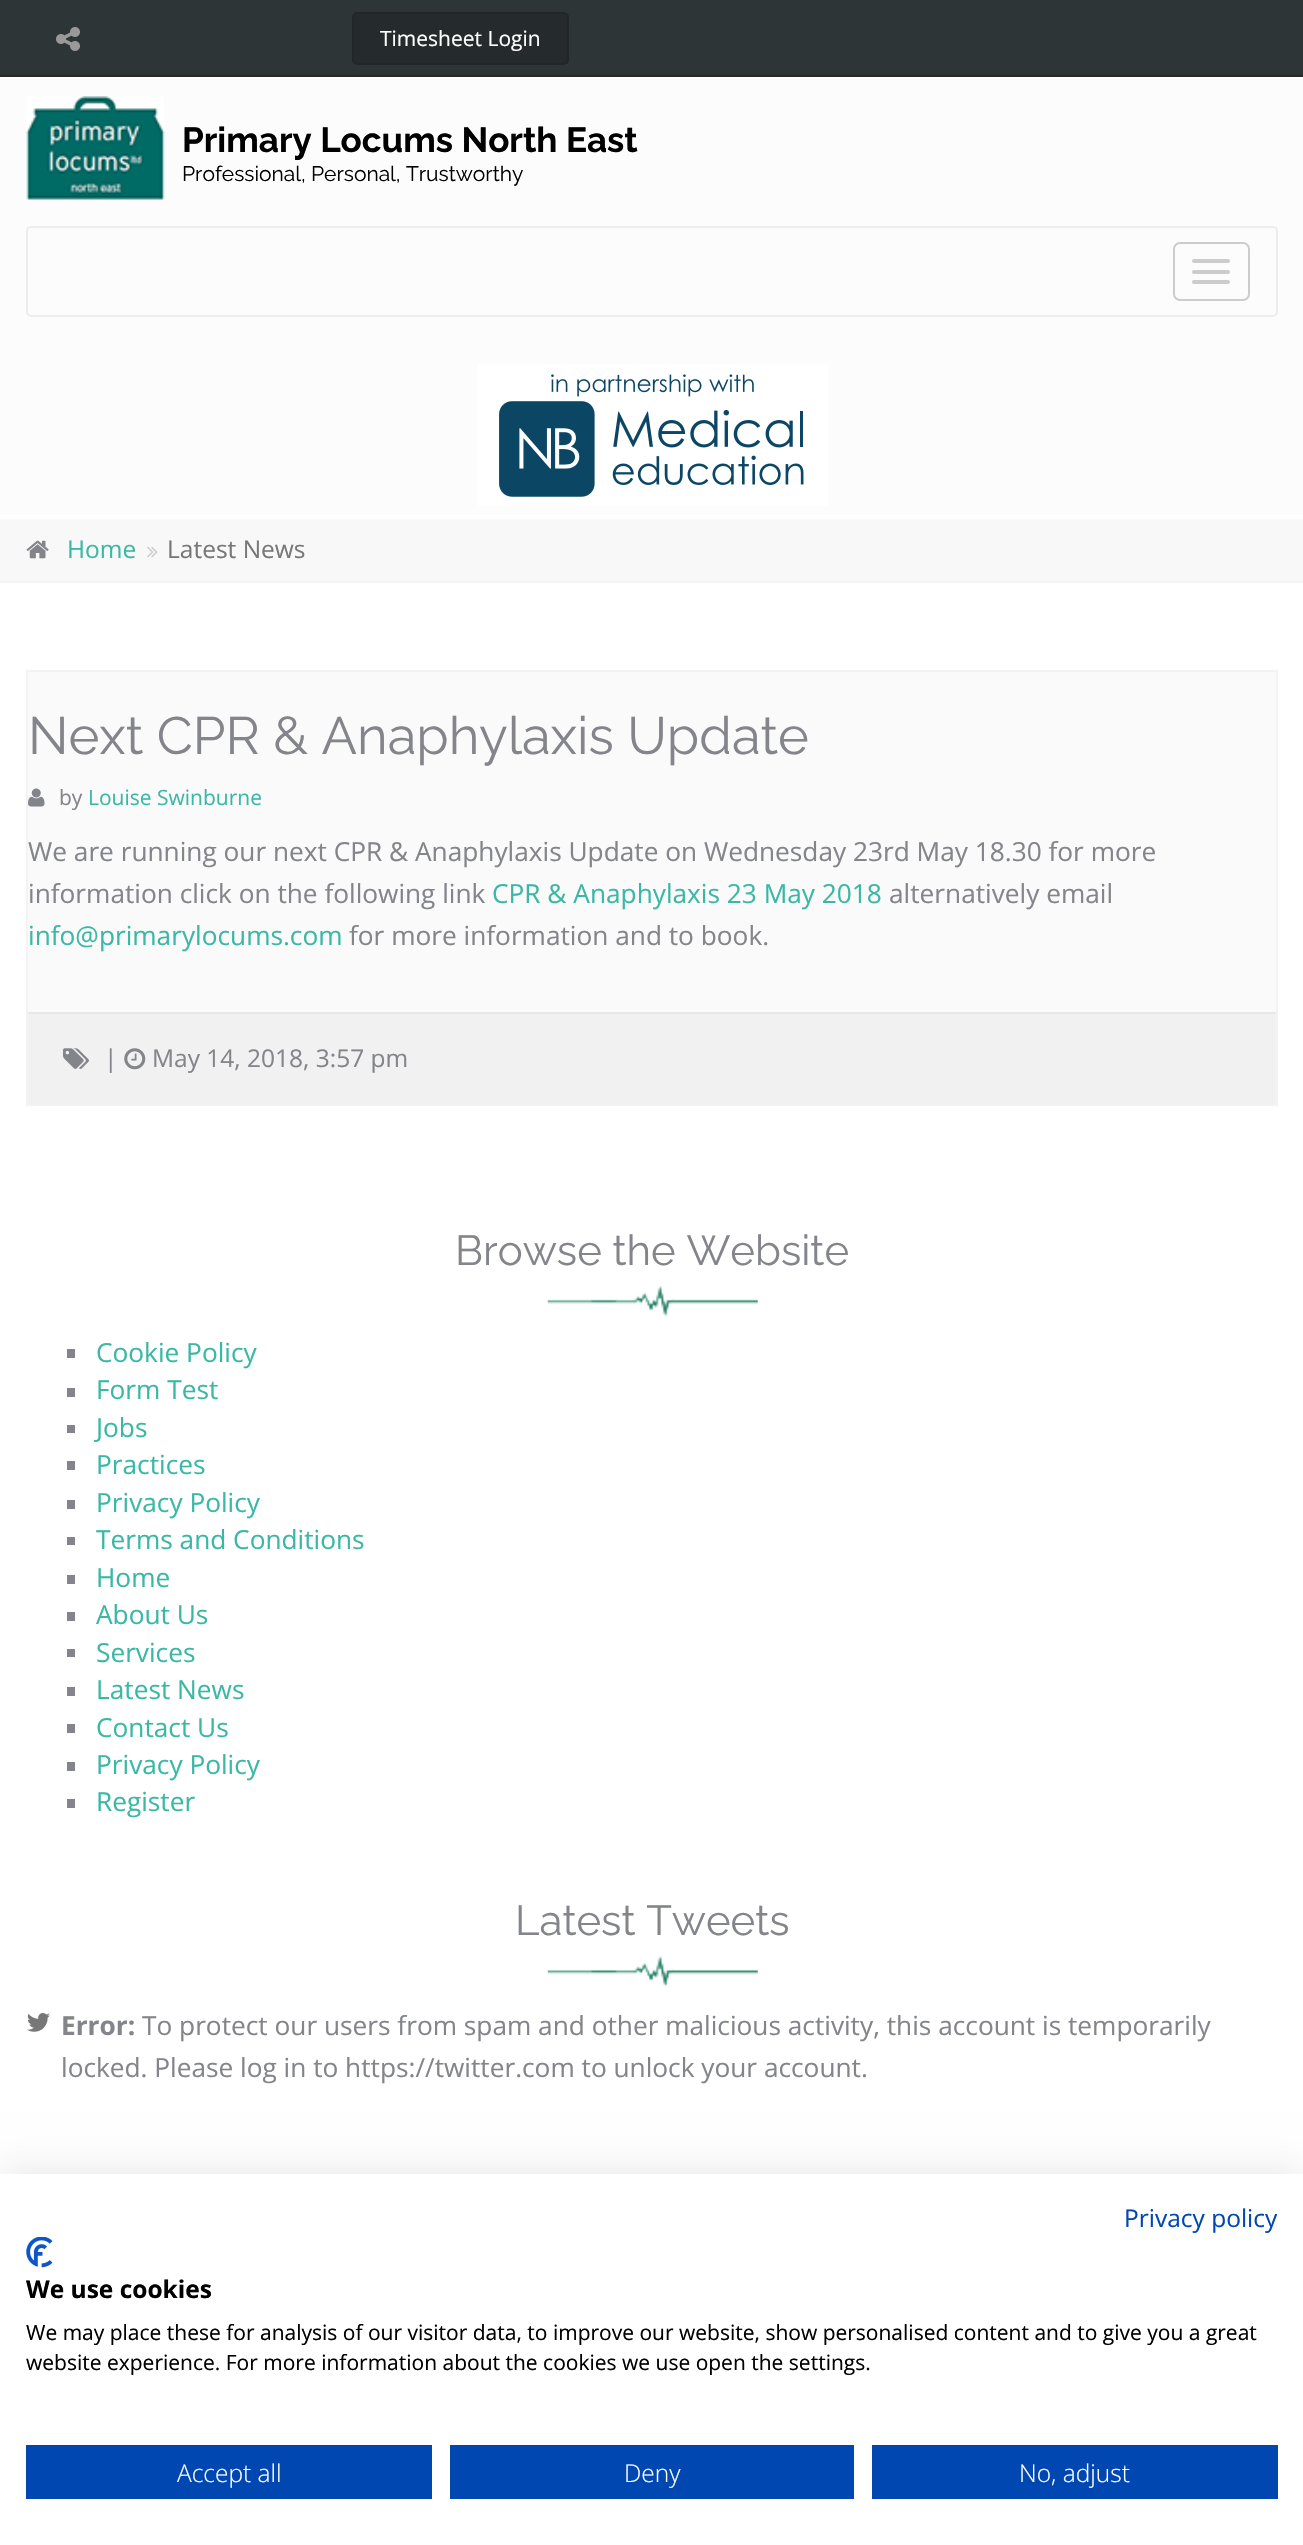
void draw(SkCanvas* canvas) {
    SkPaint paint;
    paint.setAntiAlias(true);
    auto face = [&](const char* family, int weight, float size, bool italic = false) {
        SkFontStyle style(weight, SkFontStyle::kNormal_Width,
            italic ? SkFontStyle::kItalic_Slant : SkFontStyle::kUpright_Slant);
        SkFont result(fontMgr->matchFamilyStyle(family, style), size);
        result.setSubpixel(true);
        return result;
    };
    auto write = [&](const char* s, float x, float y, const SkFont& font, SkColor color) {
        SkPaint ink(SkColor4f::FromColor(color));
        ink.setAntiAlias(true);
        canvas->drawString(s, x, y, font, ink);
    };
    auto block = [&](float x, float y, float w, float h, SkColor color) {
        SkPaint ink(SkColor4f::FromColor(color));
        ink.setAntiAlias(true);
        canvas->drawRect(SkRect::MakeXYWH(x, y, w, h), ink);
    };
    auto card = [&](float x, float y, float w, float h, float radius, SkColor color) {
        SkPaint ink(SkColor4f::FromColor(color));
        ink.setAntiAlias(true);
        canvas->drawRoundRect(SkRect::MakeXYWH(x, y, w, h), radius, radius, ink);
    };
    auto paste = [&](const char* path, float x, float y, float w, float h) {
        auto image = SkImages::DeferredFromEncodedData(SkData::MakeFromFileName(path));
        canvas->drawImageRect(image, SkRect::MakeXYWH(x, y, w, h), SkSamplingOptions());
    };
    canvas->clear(SK_ColorWHITE);
    block(0, 0, 1303, 75, SkColorSetRGB(46, 53, 55));
    block(0, 75, 1303, 2, SkColorSetRGB(37, 42, 44));
    paste("pic1.png", 56, 27, 24, 24);
    card(352, 12, 217, 53, 5, SkColorSetRGB(37, 42, 44));
    paint.setStyle(SkPaint::kStroke_Style);
    paint.setStrokeWidth(2);
    paint.setColor(SkColorSetARGB(26, 0, 0, 0));
    canvas->drawRoundRect(SkRect::MakeXYWH(353, 13, 215, 51), 4, 4, paint);
    auto kFont1 = face("Open Sans", 400, 21);
    write("Timesheet Login", 380, 46, kFont1, SK_ColorWHITE);
    block(0, 79, 1303, 436, SkColorSetRGB(252, 252, 252));
    paste("pic2.png", 26, 96, 139, 104);
    auto kFont2 = face("Raleway", 700, 35);
    write("Primary Locums North East", 182, 152, kFont2, SK_ColorBLACK);
    auto kFont3 = face("Raleway", 400, 21);
    write("Professional, Personal, Trustworthy", 182, 181, kFont3, SK_ColorBLACK);
    paint.setColor(SkColorSetRGB(237, 237, 237));
    canvas->drawRoundRect(SkRect::MakeXYWH(27, 227, 1250, 89), 4, 4, paint);
    paint.setColor(SkColorSetRGB(204, 204, 204));
    canvas->drawRoundRect(SkRect::MakeXYWH(1174, 243, 75, 57), 6, 6, paint);
    card(1192, 259, 38, 4, 2, SkColorSetRGB(204, 204, 204));
    card(1192, 270, 38, 4, 2, SkColorSetRGB(204, 204, 204));
    card(1192, 280, 38, 4, 2, SkColorSetRGB(204, 204, 204));
    block(478, 364, 350, 142, SK_ColorWHITE);
    paste("pic3.png", 499, 374, 305, 123);
    block(0, 519, 1303, 62, SkColorSetRGB(248, 248, 248));
    block(0, 581, 1303, 2, SkColorSetRGB(244, 244, 244));
    paste("pic4.png", 26, 540, 23, 19);
    auto kFont4 = face("Open Sans", 400, 24.5f);
    write("Home", 67, 558, kFont4, SkColorSetRGB(59, 184, 165));
    paste("pic5.png", 147, 546, 11, 12);
    write("Latest News", 167, 558, kFont4, SkColorSetRGB(119, 119, 119));
    block(28, 672, 1248, 340, SkColorSetRGB(250, 250, 250));
    paint.setColor(SkColorSetRGB(243, 243, 243));
    canvas->drawRect(SkRect::MakeXYWH(27, 671, 1250, 434), paint);
    auto kFont5 = face("Raleway", 400, 52.5f);
    write("Next CPR & Anaphylaxis Update", 28, 754, kFont5, SkColorSetRGB(132, 133, 139));
    paste("pic6.png", 28, 788, 17, 19);
    write("by", 59, 805, kFont1, SkColorSetRGB(132, 133, 139));
    write("Louise Swinburne", 88, 805, kFont1, SkColorSetRGB(59, 184, 165));
    auto kFont6 = face("Open Sans", 400, 26.25f);
    write("We are running our next CPR & Anaphylaxis Update on Wednesday 23rd May 18.30 for more", 28, 861, kFont6, SkColorSetRGB(132, 133, 139));
    write("information click on the following link", 28, 903, kFont6, SkColorSetRGB(132, 133, 139));
    write("CPR & Anaphylaxis 23 May 2018", 492, 903, kFont6, SkColorSetRGB(59, 184, 165));
    write("alternatively email", 889, 903, kFont6, SkColorSetRGB(132, 133, 139));
    write("info@primarylocums.com", 28, 945, kFont6, SkColorSetRGB(59, 184, 165));
    write("for more information and to book.", 349, 945, kFont6, SkColorSetRGB(132, 133, 139));
    block(28, 1014, 1248, 90, SkColorSetRGB(241, 241, 241));
    block(28, 1012, 1248, 2, SkColorSetRGB(232, 232, 232));
    paste("pic7.png", 63, 1048, 26, 21);
    write("|", 104, 1067, kFont4, SkColorSetRGB(132, 133, 139));
    paste("pic8.png", 124, 1048, 22, 22);
    write("May 14, 2018, 3:57 pm", 152, 1067, kFont4, SkColorSetRGB(132, 133, 139));
    paste("pic9.png", 547, 1286, 211, 30);
    auto kFont7 = face("Raleway", 400, 42);
    write("Browse the Website", 455, 1265, kFont7, SkColorSetRGB(132, 133, 139));
    block(67, 1349, 8, 9, SkColorSetRGB(132, 133, 139));
    write("Cookie Policy", 96, 1362, kFont6, SkColorSetRGB(59, 184, 165));
    block(67, 1388, 8, 9, SkColorSetRGB(132, 133, 139));
    write("Form Test", 96, 1399, kFont6, SkColorSetRGB(59, 184, 165));
    block(67, 1425, 8, 8, SkColorSetRGB(132, 133, 139));
    write("Jobs", 96, 1437, kFont6, SkColorSetRGB(59, 184, 165));
    block(67, 1461, 8, 9, SkColorSetRGB(132, 133, 139));
    write("Practices", 96, 1474, kFont6, SkColorSetRGB(59, 184, 165));
    block(67, 1500, 8, 9, SkColorSetRGB(132, 133, 139));
    write("Privacy Policy", 96, 1512, kFont6, SkColorSetRGB(59, 184, 165));
    block(67, 1537, 8, 8, SkColorSetRGB(132, 133, 139));
    write("Terms and Conditions", 96, 1549, kFont6, SkColorSetRGB(59, 184, 165));
    block(67, 1575, 8, 9, SkColorSetRGB(132, 133, 139));
    write("Home", 96, 1587, kFont6, SkColorSetRGB(59, 184, 165));
    block(67, 1612, 8, 9, SkColorSetRGB(132, 133, 139));
    write("About Us", 96, 1624, kFont6, SkColorSetRGB(59, 184, 165));
    block(67, 1649, 8, 8, SkColorSetRGB(132, 133, 139));
    write("Services", 96, 1662, kFont6, SkColorSetRGB(59, 184, 165));
    block(67, 1687, 8, 9, SkColorSetRGB(132, 133, 139));
    write("Latest News", 96, 1699, kFont6, SkColorSetRGB(59, 184, 165));
    block(67, 1724, 8, 9, SkColorSetRGB(132, 133, 139));
    write("Contact Us", 96, 1737, kFont6, SkColorSetRGB(59, 184, 165));
    block(67, 1762, 8, 9, SkColorSetRGB(132, 133, 139));
    write("Privacy Policy", 96, 1774, kFont6, SkColorSetRGB(59, 184, 165));
    block(67, 1799, 8, 9, SkColorSetRGB(132, 133, 139));
    write("Register", 96, 1811, kFont6, SkColorSetRGB(59, 184, 165));
    paste("pic10.png", 547, 1956, 211, 31);
    write("Latest Tweets", 515, 1935, kFont7, SkColorSetRGB(132, 133, 139));
    paste("pic11.png", 27, 2013, 23, 19);
    auto kFont8 = face("Open Sans", 700, 26.25f);
    write("Error:", 61, 2035, kFont8, SkColorSetRGB(132, 133, 139));
    write("To protect our users from spam and other malicious activity, this account is temporarily", 142, 2035, kFont6, SkColorSetRGB(132, 133, 139));
    write("locked. Please log in to https://twitter.com to unlock your account.", 61, 2077, kFont6, SkColorSetRGB(132, 133, 139));
    paint.setStyle(SkPaint::kFill_Style);
    paint.setColor(SkColorSetARGB(26, 0, 0, 0));
    paint.setMaskFilter(SkMaskFilter::MakeBlur(kNormal_SkBlurStyle, 21));
    canvas->drawRect(SkRect::MakeXYWH(0, 2174, 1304, 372), paint);
    paint.setMaskFilter(nullptr);
    block(0, 2174, 1303, 371, SK_ColorWHITE);
    write("Privacy policy", 1124, 2227, kFont4, SkColorSetRGB(0, 71, 178));
    paste("pic12.png", 26, 2237, 27, 31);
    auto kFont9 = face("Open Sans", 700, 24.5f);
    write("We use cookies", 26, 2298, kFont9, SK_ColorBLACK);
    write("We may place these for analysis of our visitor data, to improve our website, show personalised content and to give you a great", 26, 2340, kFont1, SK_ColorBLACK);
    write("website experience. For more information about the cookies we use open the settings.", 26, 2370, kFont1, SK_ColorBLACK);
    block(26, 2445, 406, 54, SkColorSetRGB(0, 71, 178));
    auto kFont10 = face("Open Sans", 300, 24.5f);
    write("Accept all", 177, 2482, kFont10, SK_ColorWHITE);
    block(450, 2445, 404, 54, SkColorSetRGB(0, 71, 178));
    write("Deny", 624, 2482, kFont10, SK_ColorWHITE);
    block(872, 2445, 406, 54, SkColorSetRGB(0, 71, 178));
    write("No, adjust", 1019, 2482, kFont10, SK_ColorWHITE);
}
